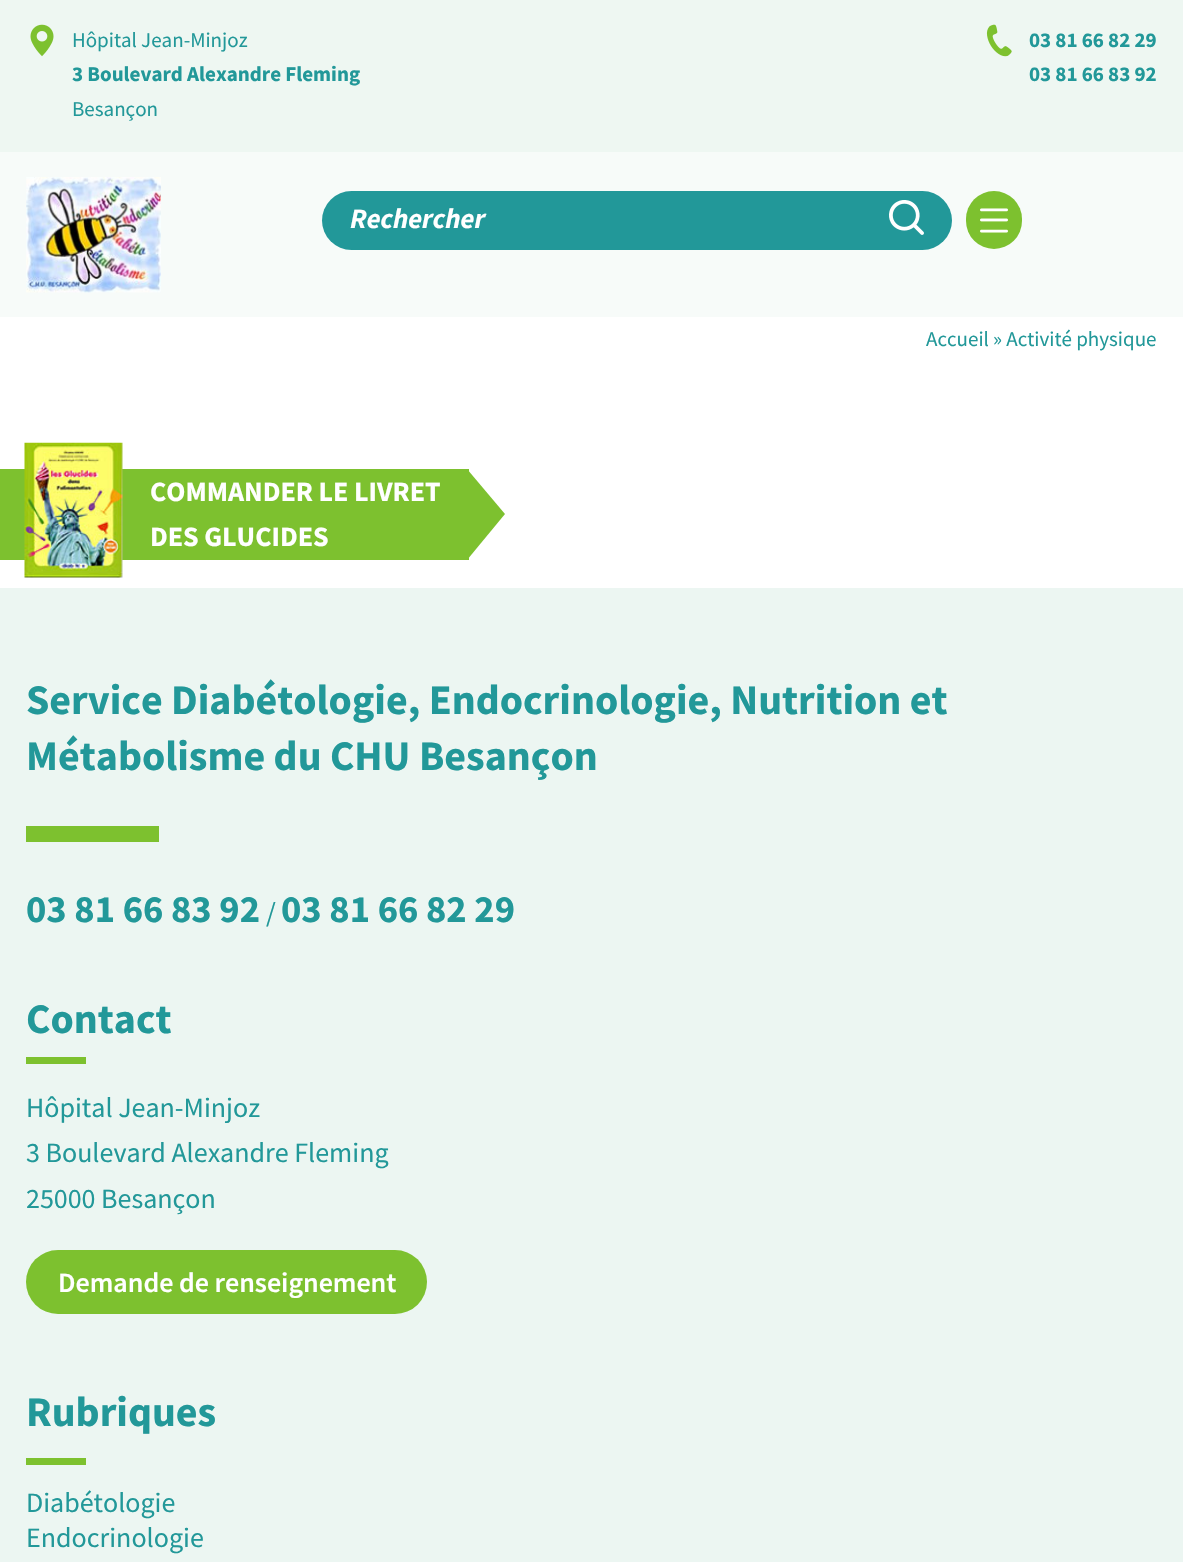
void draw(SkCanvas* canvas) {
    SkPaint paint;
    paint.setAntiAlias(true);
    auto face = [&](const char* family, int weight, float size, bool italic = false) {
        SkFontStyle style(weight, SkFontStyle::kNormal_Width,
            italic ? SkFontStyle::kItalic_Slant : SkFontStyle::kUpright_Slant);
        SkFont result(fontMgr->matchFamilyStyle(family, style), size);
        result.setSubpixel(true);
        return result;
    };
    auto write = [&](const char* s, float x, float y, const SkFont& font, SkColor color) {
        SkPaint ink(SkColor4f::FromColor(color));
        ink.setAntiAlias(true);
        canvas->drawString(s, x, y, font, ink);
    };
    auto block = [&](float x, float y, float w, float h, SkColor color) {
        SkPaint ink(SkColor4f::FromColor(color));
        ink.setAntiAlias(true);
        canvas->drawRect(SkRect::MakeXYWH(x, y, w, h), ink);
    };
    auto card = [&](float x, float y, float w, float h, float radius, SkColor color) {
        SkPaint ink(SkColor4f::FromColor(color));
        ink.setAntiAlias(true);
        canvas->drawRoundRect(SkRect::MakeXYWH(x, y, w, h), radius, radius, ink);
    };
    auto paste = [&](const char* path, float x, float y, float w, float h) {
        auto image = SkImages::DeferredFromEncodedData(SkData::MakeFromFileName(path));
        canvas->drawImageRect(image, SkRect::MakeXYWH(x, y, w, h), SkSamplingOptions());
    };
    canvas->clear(SK_ColorWHITE);
    block(0, 0, 1183, 152, SkColorSetRGB(238, 247, 242));
    paste("pic1.png", 30, 24, 24, 33);
    auto kFont1 = face("Source Sans Pro", 400, 21);
    write("Hôpital Jean-Minjoz", 72, 47, kFont1, SkColorSetRGB(34, 152, 153));
    auto kFont2 = face("Source Sans Pro", 700, 21);
    write("3 Boulevard Alexandre Fleming", 72, 81, kFont2, SkColorSetRGB(34, 152, 153));
    write("Besançon", 72, 116, kFont1, SkColorSetRGB(34, 152, 153));
    paste("pic2.png", 986, 24, 26, 33);
    write("03 81 66 82 29", 1029, 47, kFont2, SkColorSetRGB(34, 152, 153));
    write("03 81 66 83 92", 1029, 81, kFont2, SkColorSetRGB(34, 152, 153));
    block(0, 152, 1183, 165, SkColorSetRGB(247, 251, 249));
    paste("pic3.png", 26, 177, 135, 116);
    card(322, 191, 630, 59, 29.5f, SkColorSetRGB(34, 152, 153));
    auto kFont3 = face("Source Sans Pro", 700, 28, true);
    write("Rechercher", 350, 228, kFont3, SK_ColorWHITE);
    paste("pic4.png", 889, 200, 35, 35);
    card(966, 191, 56, 58, 28, SkColorSetRGB(125, 193, 47));
    paste("pic5.png", 980, 208, 28, 25);
    write("Accueil » Activité physique", 926, 346, kFont1, SkColorSetRGB(34, 152, 153));
    block(0, 469, 469, 91, SkColorSetRGB(125, 193, 47));
    paint.setColor(SkColorSetRGB(125, 193, 47));
    canvas->drawPath(SkPathBuilder(SkPathFillType::kEvenOdd).moveTo(467, 469).lineTo(505, 514).lineTo(467, 560).close().detach(), paint);
    paste("pic6.png", 24, 442, 99, 136);
    auto kFont4 = face("Source Sans Pro", 700, 28);
    write("COMMANDER LE LIVRET", 150, 501, kFont4, SK_ColorWHITE);
    write("DES GLUCIDES", 150, 546, kFont4, SK_ColorWHITE);
    block(0, 588, 1183, 974, SkColorSetRGB(236, 246, 242));
    auto kFont5 = face("Source Sans Pro", 700, 42);
    write("Service Diabétologie, Endocrinologie, Nutrition et", 26, 714, kFont5, SkColorSetRGB(34, 152, 153));
    write("Métabolisme du CHU Besançon", 26, 770, kFont5, SkColorSetRGB(34, 152, 153));
    block(26, 826, 133, 16, SkColorSetRGB(125, 193, 47));
    auto kFont6 = face("Source Sans Pro", 700, 38.5f);
    write("03 81 66 83 92", 26, 922, kFont6, SkColorSetRGB(34, 152, 153));
    auto kFont7 = face("Source Sans Pro", 400, 28);
    write("/", 266, 922, kFont7, SkColorSetRGB(34, 152, 153));
    write("03 81 66 82 29", 281, 922, kFont6, SkColorSetRGB(34, 152, 153));
    write("Contact", 26, 1033, kFont5, SkColorSetRGB(34, 152, 153));
    block(26, 1057, 60, 7, SkColorSetRGB(125, 193, 47));
    write("Hôpital Jean-Minjoz", 26, 1117, kFont7, SkColorSetRGB(34, 152, 153));
    write("3 Boulevard Alexandre Fleming", 26, 1162, kFont7, SkColorSetRGB(34, 152, 153));
    write("25000 Besançon", 26, 1208, kFont7, SkColorSetRGB(34, 152, 153));
    card(26, 1250, 401, 64, 32, SkColorSetRGB(125, 193, 47));
    auto kFont8 = face("Source Sans Pro", 600, 28);
    write("Demande de renseignement", 58, 1292, kFont8, SK_ColorWHITE);
    write("Rubriques", 26, 1426, kFont5, SkColorSetRGB(34, 152, 153));
    block(26, 1458, 60, 7, SkColorSetRGB(125, 193, 47));
    write("Diabétologie", 26, 1512, kFont7, SkColorSetRGB(34, 152, 153));
    write("Endocrinologie", 26, 1547, kFont7, SkColorSetRGB(34, 152, 153));
}
